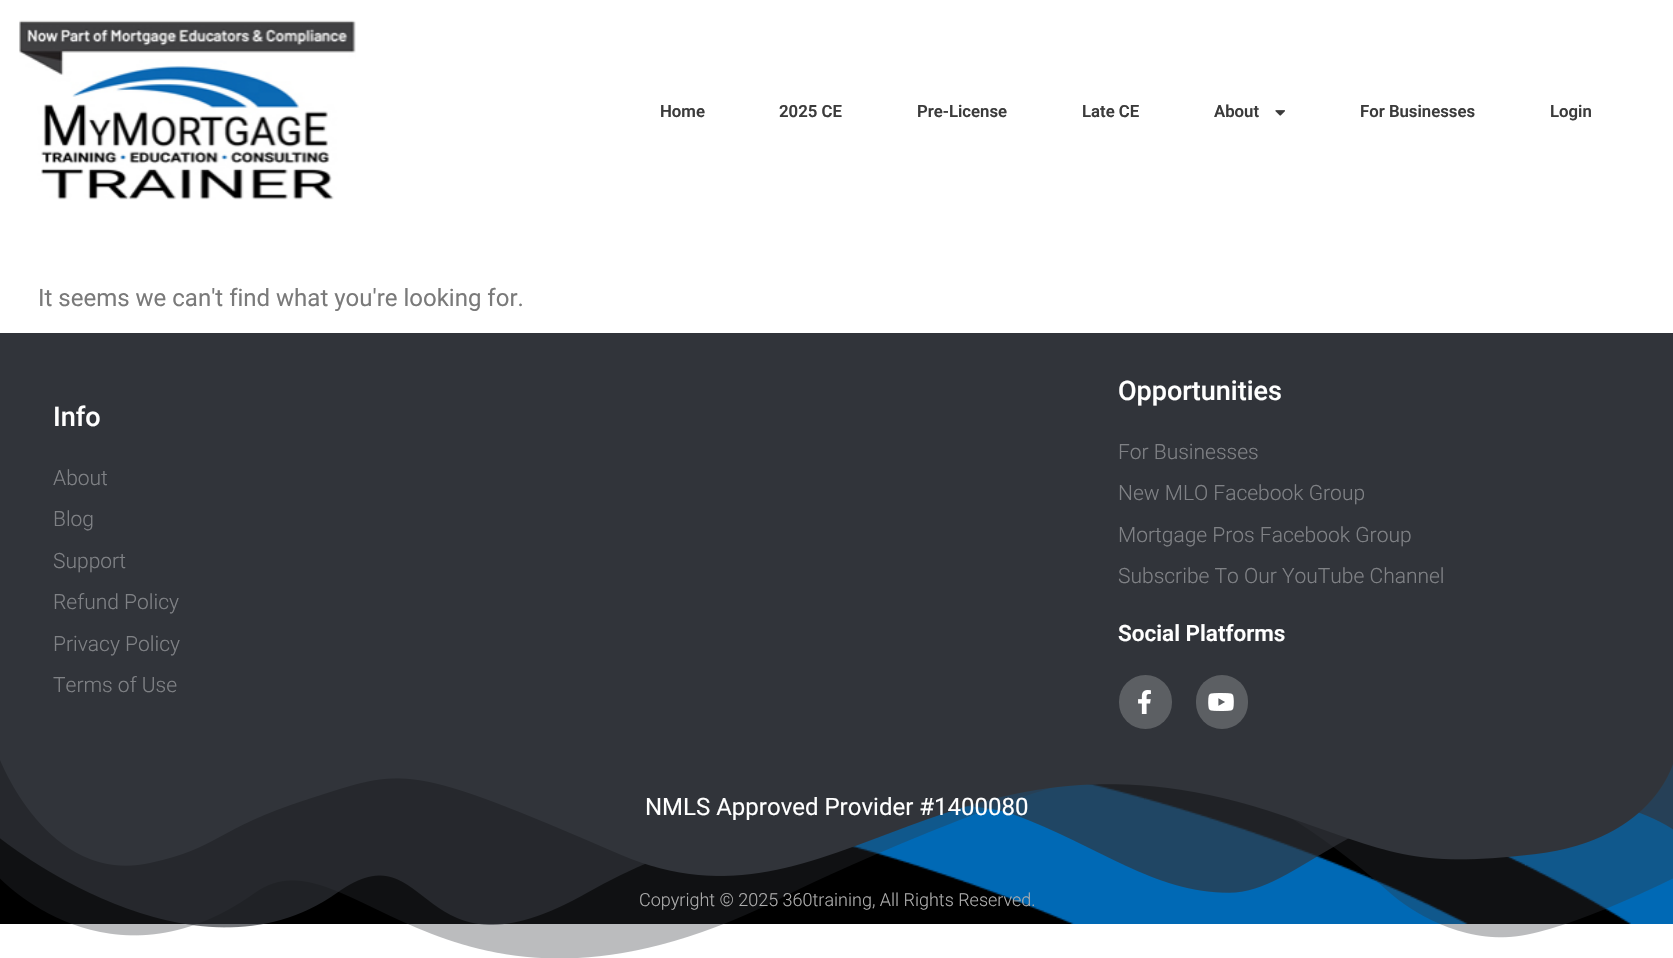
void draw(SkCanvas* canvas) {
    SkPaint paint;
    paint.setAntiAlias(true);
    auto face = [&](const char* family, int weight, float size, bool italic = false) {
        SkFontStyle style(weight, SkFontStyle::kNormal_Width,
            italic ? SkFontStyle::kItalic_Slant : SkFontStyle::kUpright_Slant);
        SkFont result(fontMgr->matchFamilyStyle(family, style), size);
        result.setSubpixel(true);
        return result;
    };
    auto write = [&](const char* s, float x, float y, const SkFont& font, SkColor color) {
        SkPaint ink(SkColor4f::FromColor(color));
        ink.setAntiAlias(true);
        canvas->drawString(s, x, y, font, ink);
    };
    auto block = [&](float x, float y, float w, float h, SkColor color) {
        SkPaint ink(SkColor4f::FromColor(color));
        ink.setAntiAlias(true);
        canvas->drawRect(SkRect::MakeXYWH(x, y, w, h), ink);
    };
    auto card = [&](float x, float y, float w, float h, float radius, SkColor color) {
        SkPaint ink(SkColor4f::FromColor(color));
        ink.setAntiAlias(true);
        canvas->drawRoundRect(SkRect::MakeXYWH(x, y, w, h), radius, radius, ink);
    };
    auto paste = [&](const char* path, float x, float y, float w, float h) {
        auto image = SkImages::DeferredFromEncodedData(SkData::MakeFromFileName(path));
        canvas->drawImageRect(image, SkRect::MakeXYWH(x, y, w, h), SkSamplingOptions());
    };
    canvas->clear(SK_ColorWHITE);
    paste("pic1.png", 19, 20, 337, 180);
    auto kFont1 = face("Roboto", 600, 16.75f);
    write("Home", 660, 117, kFont1, SkColorSetRGB(59, 59, 59));
    write("2025 CE", 779, 117, kFont1, SkColorSetRGB(59, 59, 59));
    write("Pre-License", 917, 117, kFont1, SkColorSetRGB(59, 59, 59));
    write("Late CE", 1082, 117, kFont1, SkColorSetRGB(59, 59, 59));
    write("About", 1214, 117, kFont1, SkColorSetRGB(59, 59, 59));
    paste("pic2.png", 1275, 110, 10, 6);
    write("For Businesses", 1360, 117, kFont1, SkColorSetRGB(59, 59, 59));
    write("Login", 1550, 117, kFont1, SkColorSetRGB(59, 59, 59));
    auto kFont2 = face("Roboto", 400, 24);
    write("It seems we can't find what you're looking for.", 38, 306, kFont2, SkColorSetRGB(122, 122, 122));
    block(0, 333, 1673, 425, SkColorSetRGB(49, 52, 58));
    auto kFont3 = face("Roboto", 500, 27);
    write("Info", 53, 426, kFont3, SK_ColorWHITE);
    auto kFont4 = face("Roboto", 300, 21);
    write("About", 53, 485, kFont4, SkColorSetRGB(127, 129, 133));
    write("Blog", 53, 526, kFont4, SkColorSetRGB(127, 129, 133));
    write("Support", 53, 568, kFont4, SkColorSetRGB(127, 129, 133));
    write("Refund Policy", 53, 609, kFont4, SkColorSetRGB(127, 129, 133));
    write("Privacy Policy", 53, 651, kFont4, SkColorSetRGB(127, 129, 133));
    write("Terms of Use", 53, 692, kFont4, SkColorSetRGB(127, 129, 133));
    write("Opportunities", 1118, 400, kFont3, SK_ColorWHITE);
    write("For Businesses", 1118, 459, kFont4, SkColorSetRGB(127, 129, 133));
    write("New MLO Facebook Group", 1118, 500, kFont4, SkColorSetRGB(127, 129, 133));
    write("Mortgage Pros Facebook Group", 1118, 542, kFont4, SkColorSetRGB(127, 129, 133));
    write("Subscribe To Our YouTube Channel", 1118, 583, kFont4, SkColorSetRGB(127, 129, 133));
    auto kFont5 = face("Roboto", 600, 22.5f);
    write("Social Platforms", 1118, 641, kFont5, SK_ColorWHITE);
    card(1119, 675, 53, 54, 26.5f, SkColorSetRGB(92, 95, 99));
    paste("pic3.png", 1138, 690, 13, 24);
    card(1196, 675, 52, 54, 26, SkColorSetRGB(92, 95, 99));
    paste("pic4.png", 1208, 693, 26, 18);
    block(0, 760, 1631, 164, SK_ColorBLACK);
    paste("pic5.png", 852, 764, 821, 160);
    paste("pic6.png", 0, 758, 1673, 200);
    write("NMLS Approved Provider #1400080", 645, 815, kFont2, SK_ColorWHITE);
    auto kFont6 = face("Roboto", 300, 18);
    write("Copyright © 2025 360training, All Rights Reserved.", 639, 906, kFont6, SkColorSetRGB(173, 173, 173));
}
